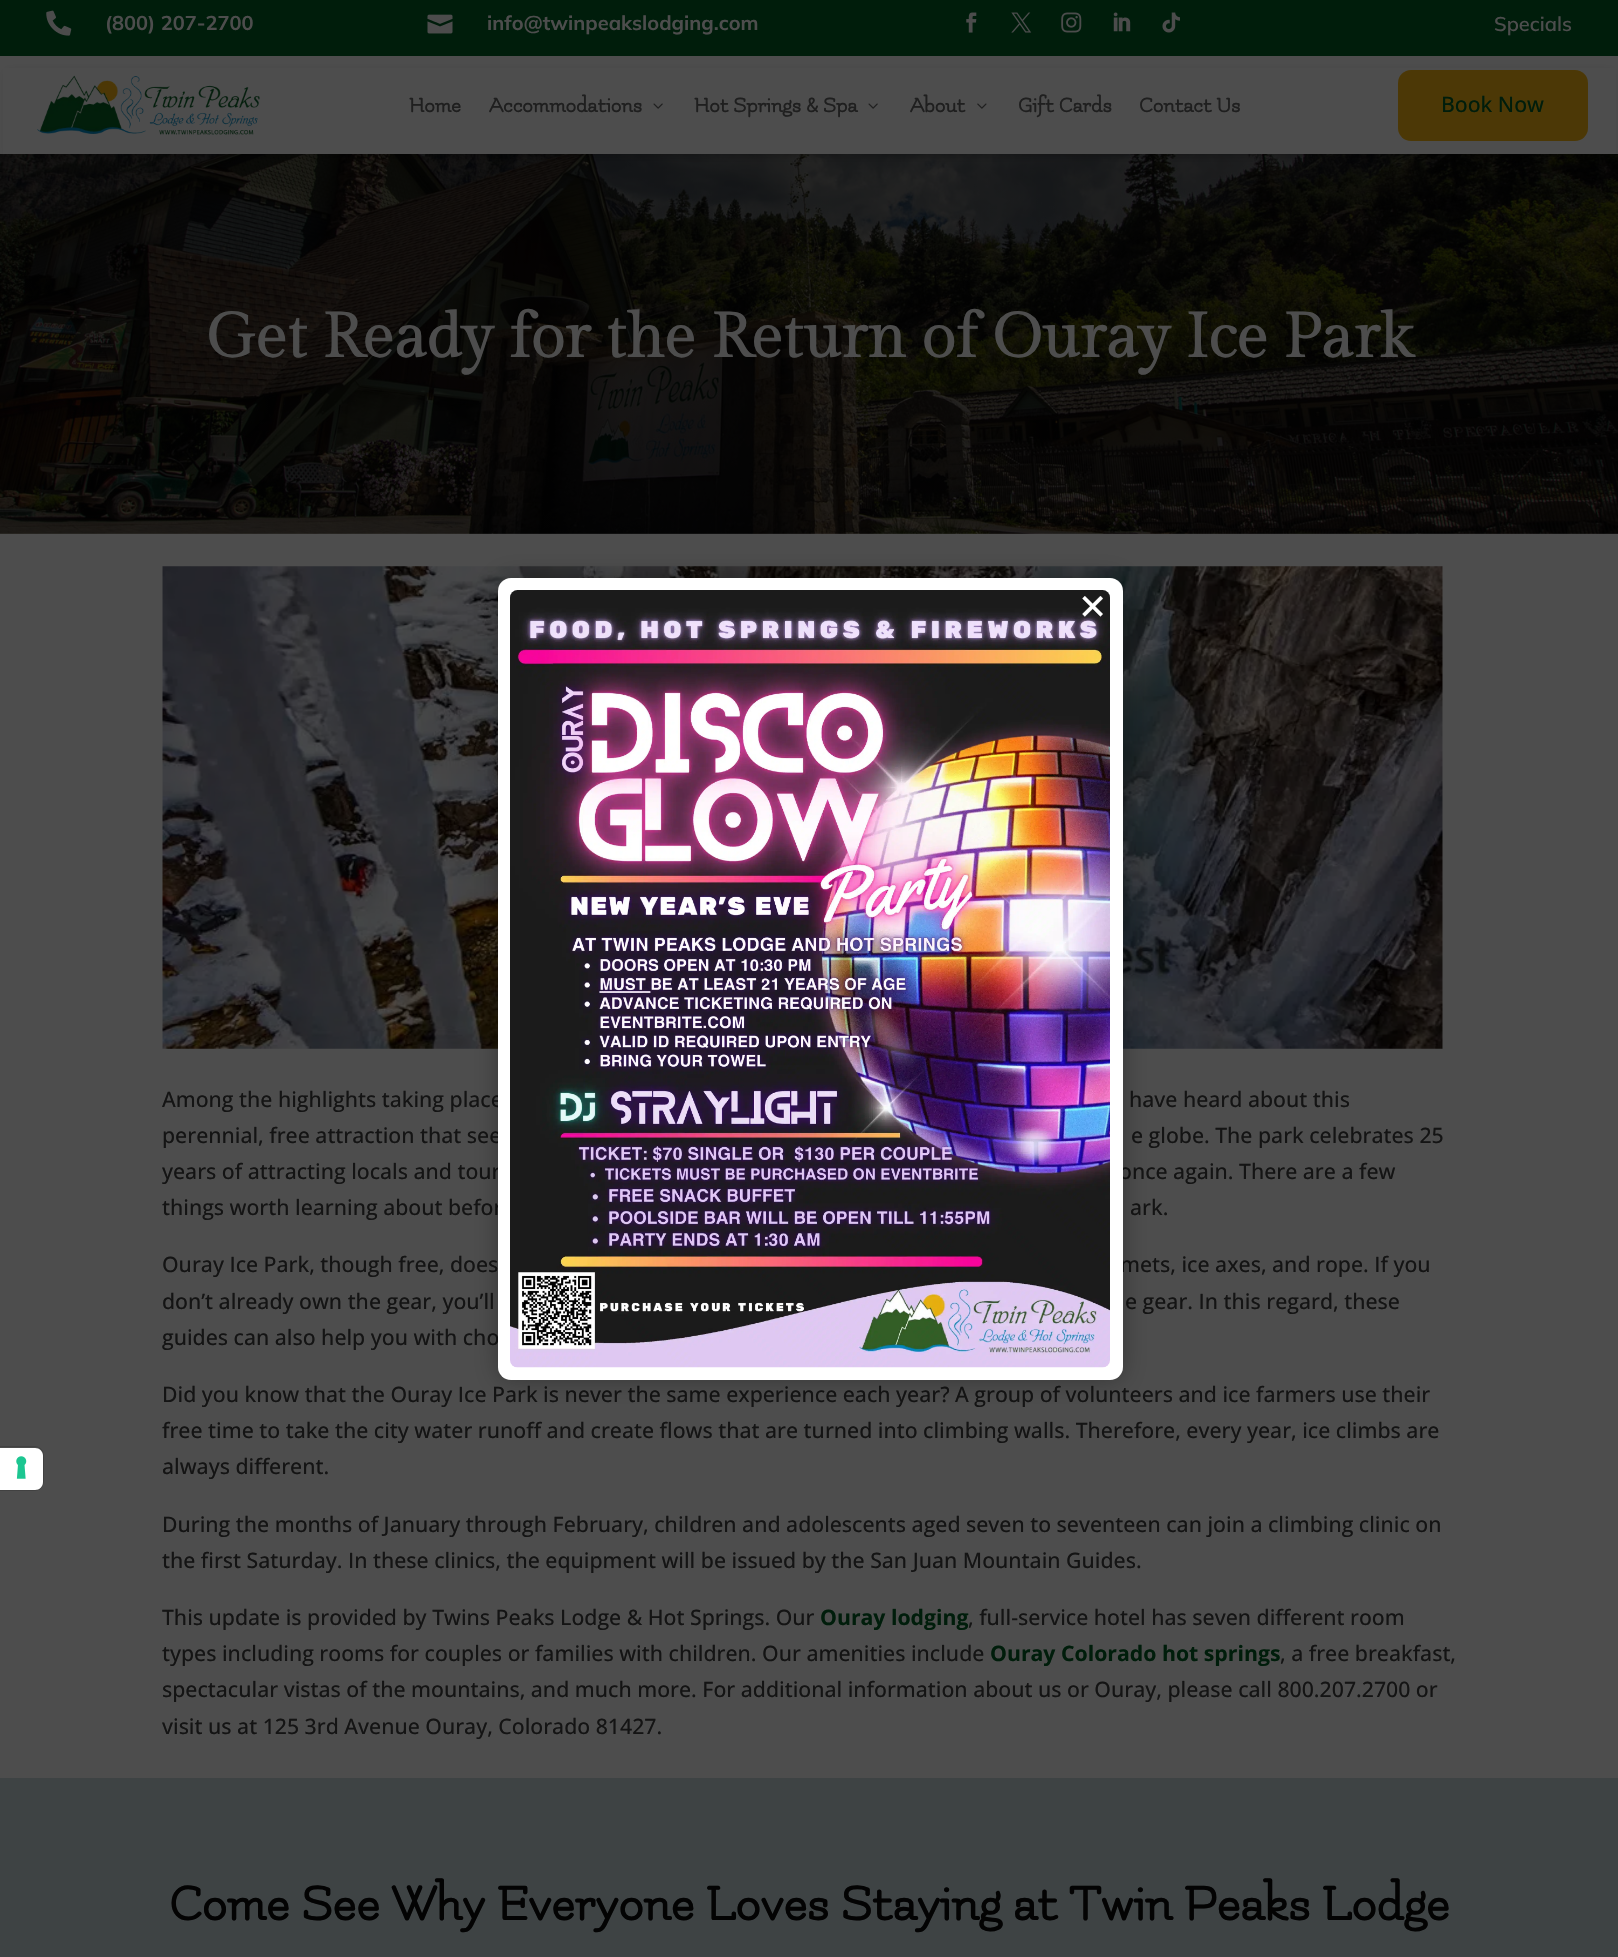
void draw(SkCanvas* canvas) {
    SkPaint paint;
    paint.setAntiAlias(true);
    auto face = [&](const char* family, int weight, float size, bool italic = false) {
        SkFontStyle style(weight, SkFontStyle::kNormal_Width,
            italic ? SkFontStyle::kItalic_Slant : SkFontStyle::kUpright_Slant);
        SkFont result(fontMgr->matchFamilyStyle(family, style), size);
        result.setSubpixel(true);
        return result;
    };
    auto write = [&](const char* s, float x, float y, const SkFont& font, SkColor color) {
        SkPaint ink(SkColor4f::FromColor(color));
        ink.setAntiAlias(true);
        canvas->drawString(s, x, y, font, ink);
    };
    auto block = [&](float x, float y, float w, float h, SkColor color) {
        SkPaint ink(SkColor4f::FromColor(color));
        ink.setAntiAlias(true);
        canvas->drawRect(SkRect::MakeXYWH(x, y, w, h), ink);
    };
    auto card = [&](float x, float y, float w, float h, float radius, SkColor color) {
        SkPaint ink(SkColor4f::FromColor(color));
        ink.setAntiAlias(true);
        canvas->drawRoundRect(SkRect::MakeXYWH(x, y, w, h), radius, radius, ink);
    };
    auto paste = [&](const char* path, float x, float y, float w, float h) {
        auto image = SkImages::DeferredFromEncodedData(SkData::MakeFromFileName(path));
        canvas->drawImageRect(image, SkRect::MakeXYWH(x, y, w, h), SkSamplingOptions());
    };
    canvas->clear(SkColorSetRGB(77, 77, 77));
    block(0, 0, 1618, 56, SkColorSetRGB(0, 29, 11));
    paste("pic1.png", 46, 10, 26, 26);
    auto kFont1 = face("Mulish", 700, 20);
    write("(800) 207-2700", 105, 30, kFont1, SkColorSetRGB(77, 77, 77));
    paste("pic2.png", 427, 14, 26, 20);
    write("info@twinpeakslodging.com", 487, 30, kFont1, SkColorSetRGB(77, 77, 77));
    paste("pic3.png", 966, 12, 11, 21);
    paste("pic4.png", 1011, 12, 21, 21);
    paste("pic5.png", 1061, 12, 21, 21);
    paste("pic6.png", 1113, 12, 18, 20);
    paste("pic7.png", 1162, 12, 18, 21);
    auto kFont2 = face("Mulish", 600, 20);
    write("Specials", 1494, 31, kFont2, SkColorSetRGB(77, 77, 77));
    paste("pic11.png", 0, 154, 1618, 380);
    paint.setColor(SkColorSetARGB(77, 0, 0, 0));
    paint.setMaskFilter(SkMaskFilter::MakeBlur(kNormal_SkBlurStyle, 4));
    canvas->drawRect(SkRect::MakeXYWH(8, 73, 1603, 82), paint);
    paint.setMaskFilter(nullptr);
    block(3, 68, 1613, 86, SkColorSetRGB(77, 77, 77));
    paste("pic8.png", 37, 75, 223, 60);
    auto kFont3 = face("Flamenco", 700, 22.5f);
    write("Home", 409, 112, kFont3, SkColorSetRGB(31, 31, 31));
    write("Accommodations", 489, 112, kFont3, SkColorSetRGB(31, 31, 31));
    paste("pic9.png", 653, 103, 10, 6);
    write("Hot Springs & Spa", 694, 112, kFont3, SkColorSetRGB(31, 31, 31));
    paste("pic9.png", 868, 103, 10, 6);
    write("About", 910, 112, kFont3, SkColorSetRGB(31, 31, 31));
    paste("pic10.png", 977, 103, 10, 6);
    write("Gift Cards", 1018, 112, kFont3, SkColorSetRGB(31, 31, 31));
    write("Contact Us", 1139, 112, kFont3, SkColorSetRGB(31, 31, 31));
    card(1398, 70, 190, 71, 13, SkColorSetRGB(76, 56, 6));
    auto kFont4 = face("Open Sans", 500, 21.25f);
    write("Book Now", 1441, 112, kFont4, SkColorSetRGB(0, 29, 11));
    auto kFont5 = face("Gilda Display", 700, 62.5f);
    write("Get Ready for the Return of Ouray Ice Park", 206, 357, kFont5, SkColorSetRGB(77, 77, 77));
    paste("pic12.png", 162, 566, 1281, 483);
    write("Among the highlights taking place", 162, 1107, kFont4, SkColorSetRGB(20, 20, 20));
    write("have heard about this", 1129, 1107, kFont4, SkColorSetRGB(20, 20, 20));
    write("perennial, free attraction that see", 162, 1143, kFont4, SkColorSetRGB(20, 20, 20));
    write("e globe. The park celebrates 25", 1131, 1143, kFont4, SkColorSetRGB(20, 20, 20));
    write("years of attracting locals and tour", 162, 1179, kFont4, SkColorSetRGB(20, 20, 20));
    write("once again. There are a few", 1119, 1179, kFont4, SkColorSetRGB(20, 20, 20));
    write("things worth learning about befor", 162, 1215, kFont4, SkColorSetRGB(20, 20, 20));
    write("ark.", 1130, 1215, kFont4, SkColorSetRGB(20, 20, 20));
    write("Ouray Ice Park, though free, does", 162, 1272, kFont4, SkColorSetRGB(20, 20, 20));
    write("mets, ice axes, and rope. If you", 1120, 1272, kFont4, SkColorSetRGB(20, 20, 20));
    write("don’t already own the gear, you’ll", 162, 1309, kFont4, SkColorSetRGB(20, 20, 20));
    write("e gear. In this regard, these", 1125, 1309, kFont4, SkColorSetRGB(20, 20, 20));
    write("guides can also help you with cho", 162, 1345, kFont4, SkColorSetRGB(20, 20, 20));
    write("Did you know that the Ouray Ice Park is never the same experience each year? A group of volunteers and ice farmers use their", 162, 1402, kFont4, SkColorSetRGB(20, 20, 20));
    write("free time to take the city water runoff and create flows that are turned into climbing walls. Therefore, every year, ice climbs are", 162, 1438, kFont4, SkColorSetRGB(20, 20, 20));
    write("always different.", 162, 1474, kFont4, SkColorSetRGB(20, 20, 20));
    write("During the months of January through February, children and adolescents aged seven to seventeen can join a climbing clinic on", 162, 1532, kFont4, SkColorSetRGB(20, 20, 20));
    write("the first Saturday. In these clinics, the equipment will be issued by the San Juan Mountain Guides.", 162, 1568, kFont4, SkColorSetRGB(20, 20, 20));
    write("This update is provided by Twins Peaks Lodge & Hot Springs. Our", 162, 1625, kFont4, SkColorSetRGB(20, 20, 20));
    auto kFont6 = face("Open Sans", 700, 21.25f);
    write("Ouray lodging", 820, 1625, kFont6, SkColorSetRGB(0, 29, 11));
    write(", full-service hotel has seven different room", 968, 1625, kFont4, SkColorSetRGB(20, 20, 20));
    write("types including rooms for couples or families with children. Our amenities include", 162, 1661, kFont4, SkColorSetRGB(20, 20, 20));
    write("Ouray Colorado hot springs", 990, 1661, kFont6, SkColorSetRGB(0, 29, 11));
    write(", a free breakfast,", 1280, 1661, kFont4, SkColorSetRGB(20, 20, 20));
    write("spectacular vistas of the mountains, and much more. For additional information about us or Ouray, please call 800.207.2700 or", 162, 1697, kFont4, SkColorSetRGB(20, 20, 20));
    write("visit us at 125 3rd Avenue Ouray, Colorado 81427.", 162, 1734, kFont4, SkColorSetRGB(20, 20, 20));
    block(0, 1778, 1618, 179, SkColorSetRGB(62, 67, 68));
    auto kFont7 = face("Flamenco", 700, 53.75f);
    write("Come See Why Everyone Loves Staying at Twin Peaks Lodge", 169, 1920, kFont7, SkColorSetRGB(3, 3, 3));
    paint.setMaskFilter(SkMaskFilter::MakeBlur(kNormal_SkBlurStyle, 12.5f));
    canvas->drawRoundRect(SkRect::MakeXYWH(498, 578, 625, 802), 13, 13, paint);
    paint.setMaskFilter(nullptr);
    card(498, 578, 625, 802, 13, SK_ColorWHITE);
    paste("pic13.png", 510, 590, 600, 778);
    auto kFont8 = face("DejaVu Sans", 400, 35);
    write("✕", 1078, 619, kFont8, SK_ColorWHITE);
    paint.setStyle(SkPaint::kStroke_Style);
    paint.setStrokeWidth(1);
    paint.setColor(SkColorSetRGB(65, 65, 65));
    canvas->drawPath(SkPathBuilder().moveTo(-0.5f, 1446.5f).lineTo(35, 1446.5f).cubicTo(39.5f, 1446.5f, 43.5f, 1450.5f, 43.5f, 1455).lineTo(43.5f, 1482).cubicTo(43.5f, 1486.5f, 39.5f, 1490.5f, 35, 1490.5f).lineTo(-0.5f, 1490.5f).close().detach(), paint);
    paint.setStyle(SkPaint::kFill_Style);
    paint.setColor(SK_ColorWHITE);
    canvas->drawPath(SkPathBuilder().moveTo(0, 1448).lineTo(35, 1448).cubicTo(39.5f, 1448, 43, 1451.5f, 43, 1456).lineTo(43, 1482).cubicTo(43, 1486.5f, 39.5f, 1490, 35, 1490).lineTo(0, 1490).close().detach(), paint);
    paste("pic14.png", 16, 1456, 11, 23);
}
